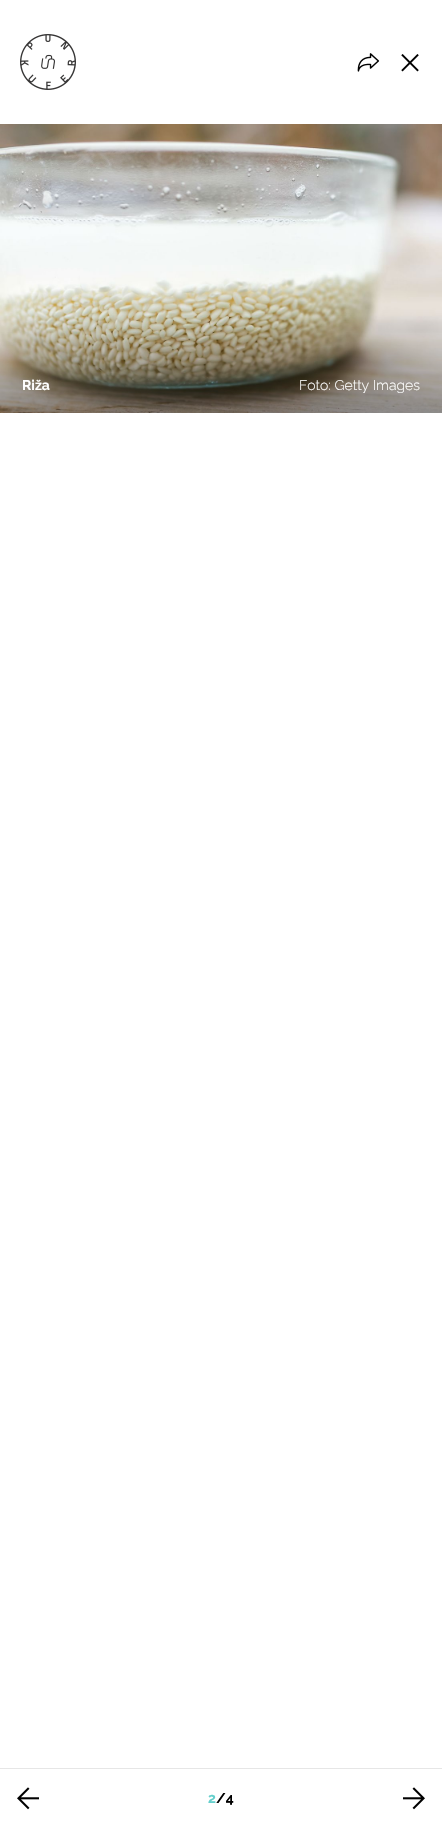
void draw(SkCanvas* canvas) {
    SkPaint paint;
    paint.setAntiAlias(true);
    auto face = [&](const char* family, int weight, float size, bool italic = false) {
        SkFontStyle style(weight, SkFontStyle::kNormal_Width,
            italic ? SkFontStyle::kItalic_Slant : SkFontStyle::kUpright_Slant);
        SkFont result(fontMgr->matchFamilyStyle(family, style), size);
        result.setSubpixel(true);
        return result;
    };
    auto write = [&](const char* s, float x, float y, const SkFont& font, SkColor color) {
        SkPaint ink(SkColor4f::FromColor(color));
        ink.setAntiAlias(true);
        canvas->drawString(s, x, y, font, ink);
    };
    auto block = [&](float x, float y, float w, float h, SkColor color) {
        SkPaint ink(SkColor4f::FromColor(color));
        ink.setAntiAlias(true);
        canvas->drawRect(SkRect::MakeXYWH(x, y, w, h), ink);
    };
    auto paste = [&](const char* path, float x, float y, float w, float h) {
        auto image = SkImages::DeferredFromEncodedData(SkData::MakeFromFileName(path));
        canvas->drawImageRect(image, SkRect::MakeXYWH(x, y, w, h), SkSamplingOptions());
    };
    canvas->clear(SK_ColorWHITE);
    paste("pic1.png", 20, 34, 56, 56);
    paste("pic2.png", 357, 53, 23, 19);
    paste("pic3.png", 401, 54, 18, 18);
    paste("pic4.png", 0, 124, 442, 289);
    auto kFont1 = face("Raleway", 700, 14);
    write("Riža", 22, 390, kFont1, SK_ColorWHITE);
    auto kFont2 = face("Raleway", 300, 14);
    write("Foto: Getty Images", 299, 390, kFont2, SK_ColorWHITE);
    block(0, 1768, 442, 1, SkColorSetRGB(230, 230, 230));
    paste("pic5.png", 17, 1787, 22, 23);
    write("2", 208, 1803, kFont1, SkColorSetRGB(100, 207, 204));
    write("/4", 216, 1803, kFont1, SK_ColorBLACK);
    paste("pic6.png", 403, 1787, 22, 23);
}
